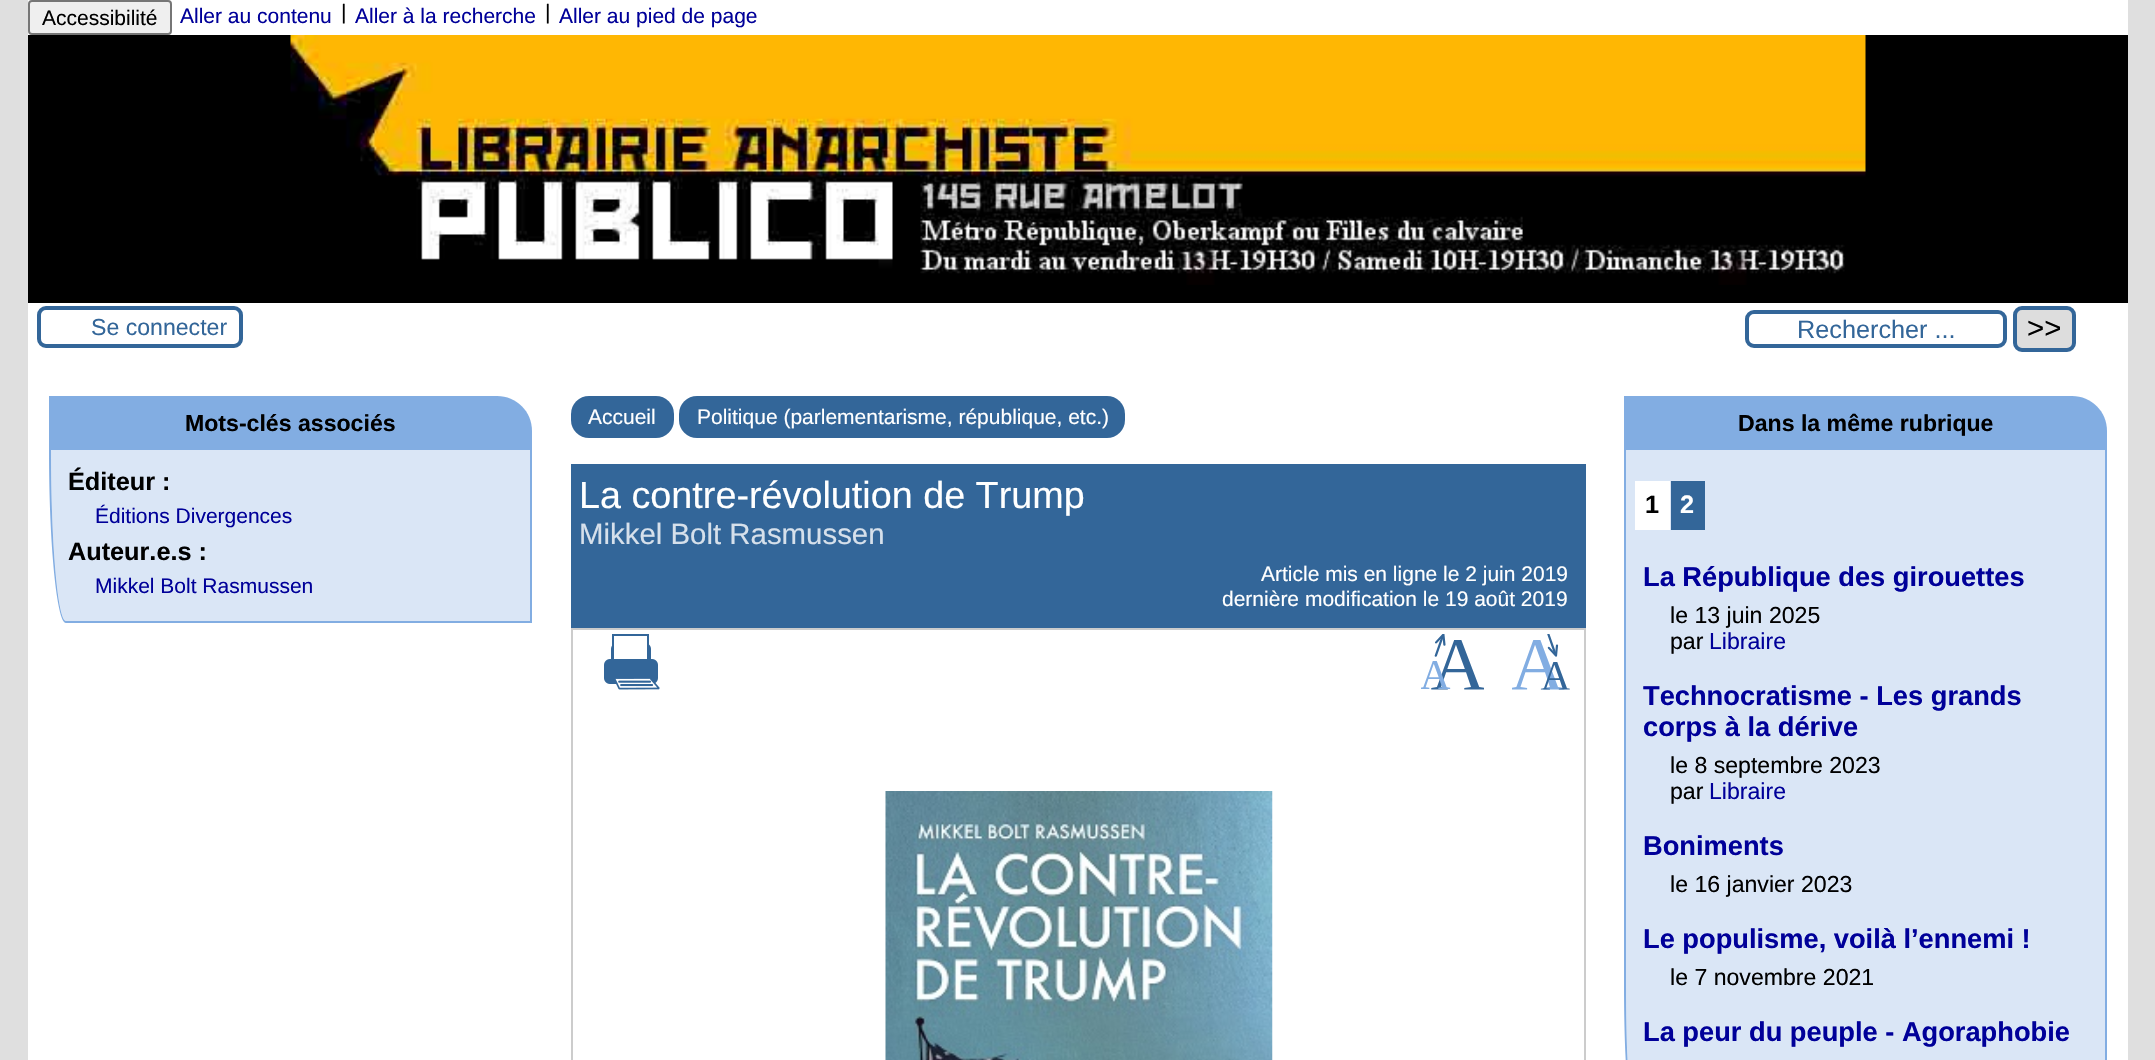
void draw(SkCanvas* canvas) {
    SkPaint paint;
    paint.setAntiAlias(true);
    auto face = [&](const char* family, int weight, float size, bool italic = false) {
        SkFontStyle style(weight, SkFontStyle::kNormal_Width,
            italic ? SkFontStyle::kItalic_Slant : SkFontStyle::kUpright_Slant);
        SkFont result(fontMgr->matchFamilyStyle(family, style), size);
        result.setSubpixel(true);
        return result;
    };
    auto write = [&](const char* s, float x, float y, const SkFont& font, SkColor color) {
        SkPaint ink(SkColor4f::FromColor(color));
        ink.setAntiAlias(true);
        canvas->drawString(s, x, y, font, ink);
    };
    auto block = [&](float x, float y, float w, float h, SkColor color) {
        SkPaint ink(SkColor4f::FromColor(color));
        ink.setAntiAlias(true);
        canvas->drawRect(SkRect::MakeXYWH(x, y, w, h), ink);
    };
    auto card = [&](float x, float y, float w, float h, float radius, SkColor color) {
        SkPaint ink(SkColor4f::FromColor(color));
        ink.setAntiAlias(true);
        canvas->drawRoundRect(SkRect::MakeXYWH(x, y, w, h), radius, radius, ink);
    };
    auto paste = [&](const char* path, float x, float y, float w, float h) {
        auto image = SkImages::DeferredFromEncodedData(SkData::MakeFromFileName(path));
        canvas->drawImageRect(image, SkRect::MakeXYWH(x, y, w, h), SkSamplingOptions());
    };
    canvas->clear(SkColorSetRGB(223, 223, 223));
    block(28, 303, 2100, 757, SK_ColorWHITE);
    block(28, 35, 2100, 268, SK_ColorBLACK);
    block(28, 0, 2100, 35, SK_ColorWHITE);
    paint.setColor(SkColorSetRGB(239, 239, 239));
    canvas->drawRoundRect(SkRect::MakeXYWH(29, 1, 142, 33), 3, 3, paint);
    paint.setStyle(SkPaint::kStroke_Style);
    paint.setStrokeWidth(2);
    paint.setColor(SkColorSetRGB(118, 118, 118));
    canvas->drawRoundRect(SkRect::MakeXYWH(29, 1, 142, 33), 3, 3, paint);
    auto kFont1 = face("Liberation Sans", 400, 21);
    write("Accessibilité", 42, 25, kFont1, SK_ColorBLACK);
    write("Aller au contenu", 180, 23, kFont1, SkColorSetRGB(0, 0, 153));
    write("|", 341, 19, kFont1, SK_ColorBLACK);
    write("Aller à la recherche", 355, 23, kFont1, SkColorSetRGB(0, 0, 153));
    write("|", 545, 19, kFont1, SK_ColorBLACK);
    write("Aller au pied de page", 559, 23, kFont1, SkColorSetRGB(0, 0, 153));
    paste("pic1.png", 290, 35, 1576, 250);
    paint.setStrokeWidth(4);
    paint.setColor(SkColorSetRGB(51, 102, 153));
    canvas->drawRoundRect(SkRect::MakeXYWH(39, 308, 202, 38), 7, 7, paint);
    auto kFont2 = face("Liberation Sans", 400, 23.1f);
    write("Se connecter", 91, 335, kFont2, SkColorSetRGB(51, 102, 153));
    canvas->drawRoundRect(SkRect::MakeXYWH(1747, 312, 258, 34), 7, 7, paint);
    auto kFont3 = face("Liberation Sans", 400, 25.25f);
    write("Rechercher ...", 1797, 338, kFont3, SkColorSetRGB(51, 102, 153));
    paint.setStyle(SkPaint::kFill_Style);
    paint.setColor(SkColorSetRGB(221, 221, 221));
    canvas->drawRoundRect(SkRect::MakeXYWH(2015, 308, 59, 42), 7, 7, paint);
    paint.setStyle(SkPaint::kStroke_Style);
    paint.setColor(SkColorSetRGB(51, 102, 153));
    canvas->drawRoundRect(SkRect::MakeXYWH(2015, 308, 59, 42), 7, 7, paint);
    auto kFont4 = face("Liberation Sans", 400, 29.4f);
    write(">>", 2027, 338, kFont4, SK_ColorBLACK);
    paint.setStyle(SkPaint::kFill_Style);
    paint.setColor(SkColorSetRGB(130, 173, 226));
    canvas->drawPath(SkPathBuilder().moveTo(49, 396).lineTo(497, 396).cubicTo(516.5f, 396, 532, 411.5f, 532, 431).lineTo(532, 450).lineTo(49, 450).close().detach(), paint);
    auto kFont5 = face("Liberation Sans", 700, 23.1f);
    write("Mots-clés associés", 185, 431, kFont5, SK_ColorBLACK);
    paint.setColor(SkColorSetRGB(218, 230, 246));
    canvas->drawPath(SkPathBuilder().moveTo(51, 450).lineTo(530, 450).lineTo(530, 621).lineTo(66, 621).cubicTo(58, 621, 51, 544, 51, 450).close().detach(), paint);
    paint.setColor(SkColorSetRGB(130, 173, 226));
    canvas->drawPath(SkPathBuilder(SkPathFillType::kEvenOdd).moveTo(49, 450).lineTo(532, 450).lineTo(532, 623).lineTo(66, 623).cubicTo(57, 623, 49, 545, 49, 450).close().moveTo(51, 450).lineTo(530, 450).lineTo(530, 621).lineTo(66, 621).cubicTo(58, 621, 51, 544, 51, 450).close().detach(), paint);
    auto kFont6 = face("Liberation Sans", 700, 25.25f);
    write("Éditeur :", 68, 490, kFont6, SK_ColorBLACK);
    write("Éditions Divergences", 95, 523, kFont1, SkColorSetRGB(0, 0, 153));
    write("Auteur.e.s :", 68, 560, kFont6, SK_ColorBLACK);
    write("Mikkel Bolt Rasmussen", 95, 593, kFont1, SkColorSetRGB(0, 0, 153));
    card(571, 396, 103, 42, 18, SkColorSetRGB(51, 102, 153));
    write("Accueil", 588, 424, kFont1, SK_ColorWHITE);
    card(679, 396, 446, 42, 18, SkColorSetRGB(51, 102, 153));
    write("Politique (parlementarisme, république, etc.)", 697, 424, kFont1, SK_ColorWHITE);
    block(571, 464, 1015, 164, SkColorSetRGB(51, 102, 153));
    auto kFont7 = face("Liberation Sans", 400, 37.75f);
    write("La contre-révolution de Trump", 579, 508, kFont7, SK_ColorWHITE);
    write("Mikkel Bolt Rasmussen", 579, 544, kFont4, SkColorSetRGB(214, 224, 235));
    write("Article mis en ligne le 2 juin 2019", 1261, 581, kFont1, SK_ColorWHITE);
    write("dernière modification le 19 août 2019", 1222, 606, kFont1, SK_ColorWHITE);
    paint.setStyle(SkPaint::kStroke_Style);
    paint.setStrokeWidth(2);
    paint.setColor(SkColorSetRGB(204, 204, 204));
    canvas->drawRect(SkRect::MakeXYWH(572, 629, 1013, 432), paint);
    paste("pic2.png", 604, 634, 56, 56);
    paste("pic3.png", 1421, 634, 63, 56);
    paste("pic4.png", 1512, 634, 58, 56);
    paste("pic5.png", 885, 791, 388, 269);
    paint.setStyle(SkPaint::kFill_Style);
    paint.setColor(SkColorSetRGB(130, 173, 226));
    canvas->drawPath(SkPathBuilder().moveTo(1624, 396).lineTo(2072, 396).cubicTo(2091.5f, 396, 2107, 411.5f, 2107, 431).lineTo(2107, 450).lineTo(1624, 450).close().detach(), paint);
    write("Dans la même rubrique", 1738, 431, kFont5, SK_ColorBLACK);
    paint.setColor(SkColorSetRGB(218, 230, 246));
    canvas->drawPath(SkPathBuilder().moveTo(1626, 450).lineTo(2105, 450).lineTo(2105, 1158).lineTo(1642, 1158).cubicTo(1633, 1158, 1626, 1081, 1626, 985).close().detach(), paint);
    paint.setColor(SkColorSetRGB(130, 173, 226));
    canvas->drawPath(SkPathBuilder(SkPathFillType::kEvenOdd).moveTo(1624, 450).lineTo(2107, 450).lineTo(2107, 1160).lineTo(1642, 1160).cubicTo(1632, 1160, 1624, 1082, 1624, 985).close().moveTo(1626, 450).lineTo(2105, 450).lineTo(2105, 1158).lineTo(1642, 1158).cubicTo(1633, 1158, 1626, 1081, 1626, 985).close().detach(), paint);
    block(1635, 481, 35, 49, SK_ColorWHITE);
    write("1", 1645, 513, kFont6, SK_ColorBLACK);
    block(1671, 481, 34, 49, SkColorSetRGB(51, 102, 153));
    write("2", 1680, 513, kFont6, SK_ColorWHITE);
    auto kFont8 = face("Liberation Sans", 700, 27.25f);
    write("La République des girouettes", 1643, 586, kFont8, SkColorSetRGB(0, 0, 153));
    write("le 13 juin 2025", 1670, 623, kFont2, SK_ColorBLACK);
    write("par", 1670, 649, kFont2, SK_ColorBLACK);
    write("Libraire", 1709, 649, kFont2, SkColorSetRGB(0, 0, 153));
    write("Technocratisme - Les grands", 1643, 705, kFont8, SkColorSetRGB(0, 0, 153));
    write("corps à la dérive", 1643, 736, kFont8, SkColorSetRGB(0, 0, 153));
    write("le 8 septembre 2023", 1670, 773, kFont2, SK_ColorBLACK);
    write("par", 1670, 799, kFont2, SK_ColorBLACK);
    write("Libraire", 1709, 799, kFont2, SkColorSetRGB(0, 0, 153));
    write("Boniments", 1643, 855, kFont8, SkColorSetRGB(0, 0, 153));
    write("le 16 janvier 2023", 1670, 892, kFont2, SK_ColorBLACK);
    write("Le populisme, voilà l’ennemi !", 1643, 948, kFont8, SkColorSetRGB(0, 0, 153));
    write("le 7 novembre 2021", 1670, 985, kFont2, SK_ColorBLACK);
    write("La peur du peuple - Agoraphobie", 1643, 1041, kFont8, SkColorSetRGB(0, 0, 153));
}
